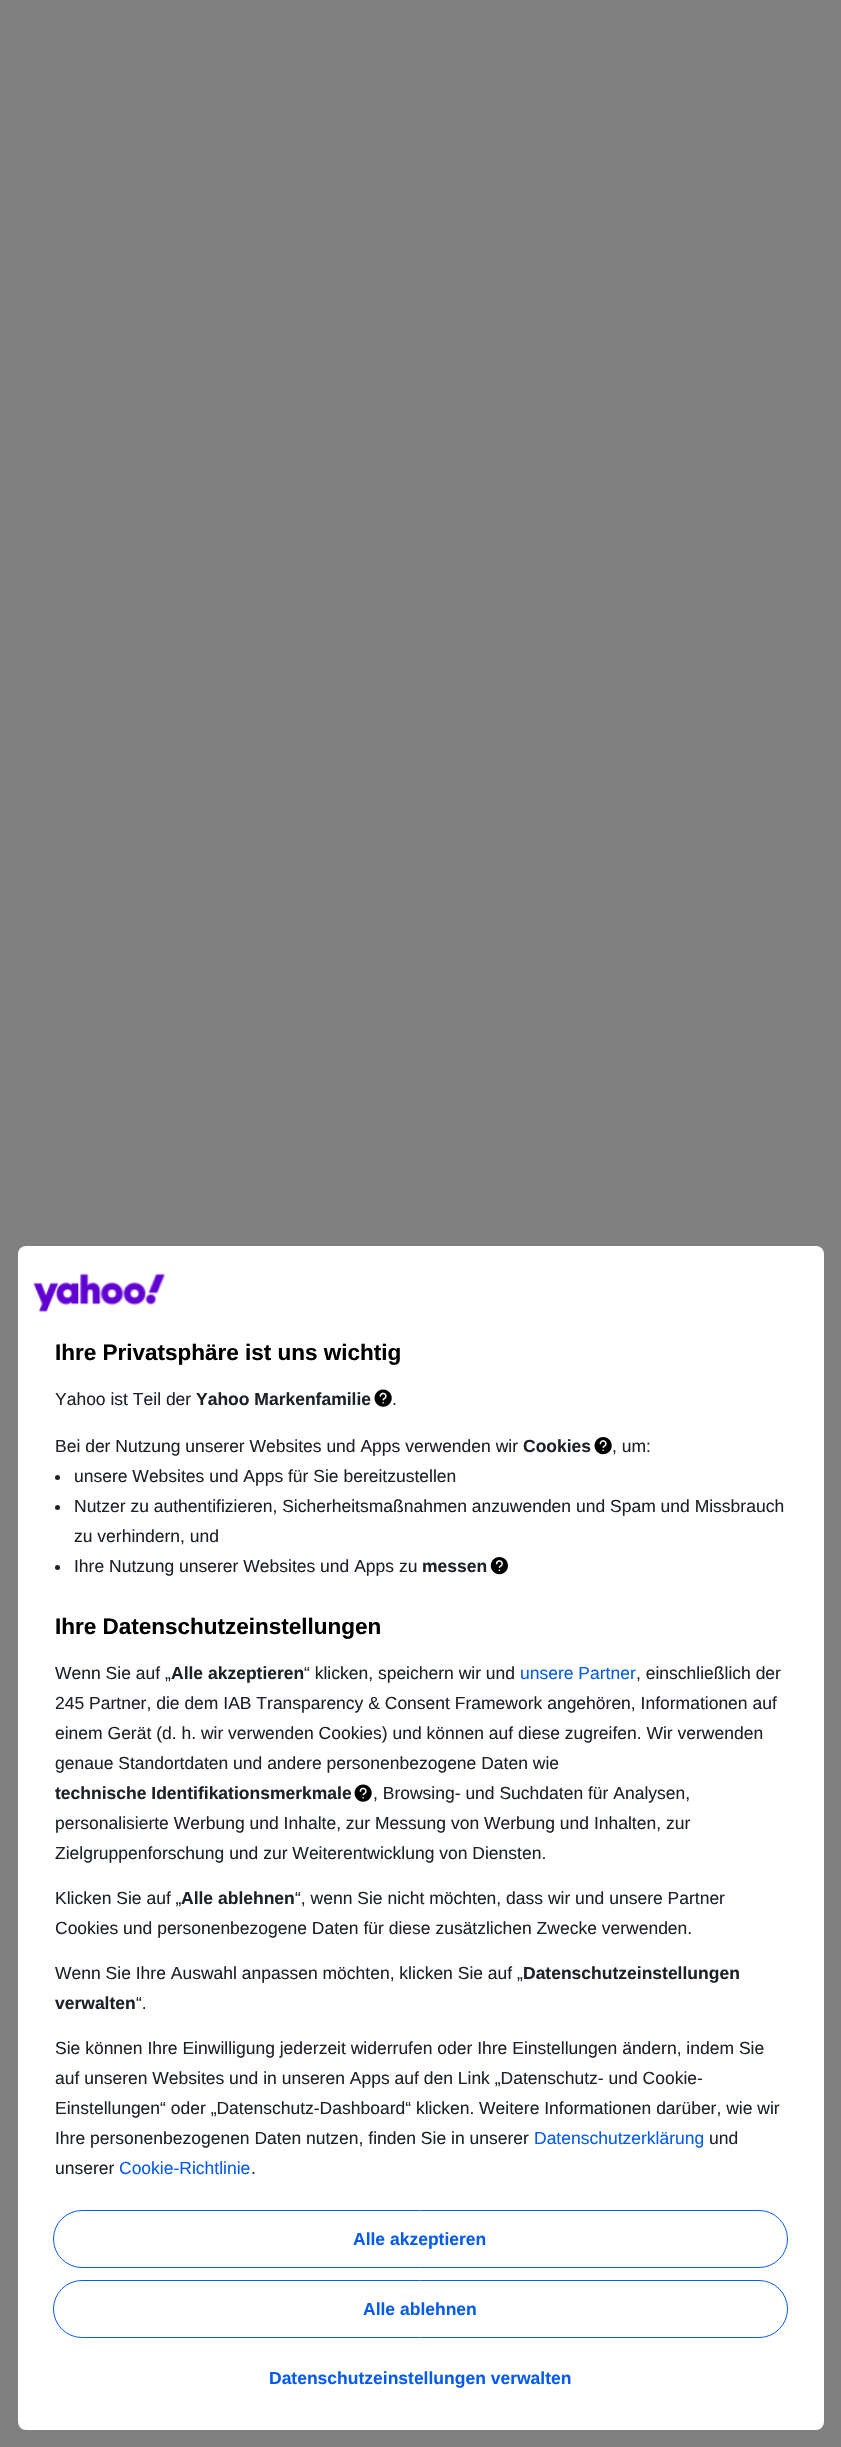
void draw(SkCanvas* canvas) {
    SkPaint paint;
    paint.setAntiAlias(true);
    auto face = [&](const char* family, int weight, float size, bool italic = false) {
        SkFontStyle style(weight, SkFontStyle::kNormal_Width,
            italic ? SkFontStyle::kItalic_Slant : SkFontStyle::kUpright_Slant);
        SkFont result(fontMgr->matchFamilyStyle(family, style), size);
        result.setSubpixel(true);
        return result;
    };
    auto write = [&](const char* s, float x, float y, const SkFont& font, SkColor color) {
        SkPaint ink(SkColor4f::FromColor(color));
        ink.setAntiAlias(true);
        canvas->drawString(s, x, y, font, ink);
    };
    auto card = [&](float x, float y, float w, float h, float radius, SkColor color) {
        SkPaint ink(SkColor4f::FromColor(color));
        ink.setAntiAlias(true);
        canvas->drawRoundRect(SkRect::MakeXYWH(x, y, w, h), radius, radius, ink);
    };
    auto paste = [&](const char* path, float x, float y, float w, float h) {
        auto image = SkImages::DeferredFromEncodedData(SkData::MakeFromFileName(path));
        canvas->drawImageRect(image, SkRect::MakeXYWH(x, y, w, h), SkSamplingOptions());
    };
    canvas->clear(SkColorSetRGB(128, 128, 128));
    card(18, 1246, 806, 1184, 8, SK_ColorWHITE);
    paste("pic1.png", 33, 1273, 133, 40);
    auto kFont1 = face("Liberation Sans", 700, 22.5f);
    write("Ihre Privatsphäre ist uns wichtig", 55, 1360, kFont1, SK_ColorBLACK);
    auto kFont2 = face("Liberation Sans", 400, 17.5f);
    write("Yahoo ist Teil der", 55, 1405, kFont2, SkColorSetRGB(29, 34, 40));
    paste("pic2.png", 374, 1389, 18, 18);
    auto kFont3 = face("Liberation Sans", 700, 17.5f);
    write("Yahoo Markenfamilie", 196, 1405, kFont3, SkColorSetRGB(29, 34, 40));
    write(".", 392, 1405, kFont2, SkColorSetRGB(29, 34, 40));
    write("Bei der Nutzung unserer Websites und Apps verwenden wir", 55, 1452, kFont2, SkColorSetRGB(29, 34, 40));
    paste("pic3.png", 594, 1437, 18, 18);
    write("Cookies", 523, 1452, kFont3, SkColorSetRGB(29, 34, 40));
    write(", um:", 612, 1452, kFont2, SkColorSetRGB(29, 34, 40));
    paint.setColor(SkColorSetRGB(29, 34, 40));
    canvas->drawCircle(57.5f, 1477.5f, 2.5f, paint);
    write("unsere Websites und Apps für Sie bereitzustellen", 74, 1482, kFont2, SkColorSetRGB(29, 34, 40));
    canvas->drawCircle(57.5f, 1507.5f, 2.5f, paint);
    write("Nutzer zu authentifizieren, Sicherheitsmaßnahmen anzuwenden und Spam und Missbrauch", 74, 1512, kFont2, SkColorSetRGB(29, 34, 40));
    write("zu verhindern, und", 74, 1542, kFont2, SkColorSetRGB(29, 34, 40));
    canvas->drawCircle(57.5f, 1567.5f, 2.5f, paint);
    write("Ihre Nutzung unserer Websites und Apps zu", 74, 1572, kFont2, SkColorSetRGB(29, 34, 40));
    paste("pic4.png", 490, 1557, 18, 18);
    write("messen", 422, 1572, kFont3, SkColorSetRGB(29, 34, 40));
    write("Ihre Datenschutzeinstellungen", 55, 1634, kFont1, SK_ColorBLACK);
    write("Wenn Sie auf „", 55, 1679, kFont2, SkColorSetRGB(29, 34, 40));
    write("Alle akzeptieren", 171, 1679, kFont3, SkColorSetRGB(29, 34, 40));
    write("“ klicken, speichern wir und", 304, 1679, kFont2, SkColorSetRGB(29, 34, 40));
    write("unsere Partner", 520, 1679, kFont2, SkColorSetRGB(6, 91, 239));
    write(", einschließlich der", 636, 1679, kFont2, SkColorSetRGB(29, 34, 40));
    write("245 Partner, die dem IAB Transparency & Consent Framework angehören, Informationen auf", 55, 1709, kFont2, SkColorSetRGB(29, 34, 40));
    write("einem Gerät (d. h. wir verwenden Cookies) und können auf diese zugreifen. Wir verwenden", 55, 1739, kFont2, SkColorSetRGB(29, 34, 40));
    write("genaue Standortdaten und andere personenbezogene Daten wie", 55, 1769, kFont2, SkColorSetRGB(29, 34, 40));
    paste("pic2.png", 354, 1784, 18, 18);
    write("technische Identifikationsmerkmale", 55, 1799, kFont3, SkColorSetRGB(29, 34, 40));
    write(", Browsing- und Suchdaten für Analysen,", 373, 1799, kFont2, SkColorSetRGB(29, 34, 40));
    write("personalisierte Werbung und Inhalte, zur Messung von Werbung und Inhalten, zur", 55, 1829, kFont2, SkColorSetRGB(29, 34, 40));
    write("Zielgruppenforschung und zur Weiterentwicklung von Diensten.", 55, 1859, kFont2, SkColorSetRGB(29, 34, 40));
    write("Klicken Sie auf „", 55, 1904, kFont2, SkColorSetRGB(29, 34, 40));
    write("Alle ablehnen", 181, 1904, kFont3, SkColorSetRGB(29, 34, 40));
    write("“, wenn Sie nicht möchten, dass wir und unsere Partner", 295, 1904, kFont2, SkColorSetRGB(29, 34, 40));
    write("Cookies und personenbezogene Daten für diese zusätzlichen Zwecke verwenden.", 55, 1934, kFont2, SkColorSetRGB(29, 34, 40));
    write("Wenn Sie Ihre Auswahl anpassen möchten, klicken Sie auf „", 55, 1979, kFont2, SkColorSetRGB(29, 34, 40));
    write("Datenschutzeinstellungen", 523, 1979, kFont3, SkColorSetRGB(29, 34, 40));
    write("verwalten", 55, 2009, kFont3, SkColorSetRGB(29, 34, 40));
    write("“.", 136, 2009, kFont2, SkColorSetRGB(29, 34, 40));
    write("Sie können Ihre Einwilligung jederzeit widerrufen oder Ihre Einstellungen ändern, indem Sie", 55, 2054, kFont2, SkColorSetRGB(29, 34, 40));
    write("auf unseren Websites und in unseren Apps auf den Link „Datenschutz- und Cookie-", 55, 2084, kFont2, SkColorSetRGB(29, 34, 40));
    write("Einstellungen“ oder „Datenschutz-Dashboard“ klicken. Weitere Informationen darüber, wie wir", 55, 2114, kFont2, SkColorSetRGB(29, 34, 40));
    write("Ihre personenbezogenen Daten nutzen, finden Sie in unserer", 55, 2144, kFont2, SkColorSetRGB(29, 34, 40));
    write("Datenschutzerklärung", 534, 2144, kFont2, SkColorSetRGB(6, 91, 239));
    write("und", 709, 2144, kFont2, SkColorSetRGB(29, 34, 40));
    write("unserer", 55, 2174, kFont2, SkColorSetRGB(29, 34, 40));
    write("Cookie-Richtlinie", 119, 2174, kFont2, SkColorSetRGB(6, 91, 239));
    write(".", 251, 2174, kFont2, SkColorSetRGB(29, 34, 40));
    paint.setStyle(SkPaint::kStroke_Style);
    paint.setStrokeWidth(1);
    paint.setColor(SkColorSetRGB(6, 91, 239));
    canvas->drawRoundRect(SkRect::MakeXYWH(53.5f, 2210.5f, 734, 57), 28.5f, 28.5f, paint);
    write("Alle akzeptieren", 353, 2245, kFont3, SkColorSetRGB(6, 91, 239));
    canvas->drawRoundRect(SkRect::MakeXYWH(53.5f, 2280.5f, 734, 57), 28.5f, 28.5f, paint);
    write("Alle ablehnen", 363, 2315, kFont3, SkColorSetRGB(6, 91, 239));
    write("Datenschutzeinstellungen verwalten", 269, 2384, kFont3, SkColorSetRGB(6, 91, 239));
}
